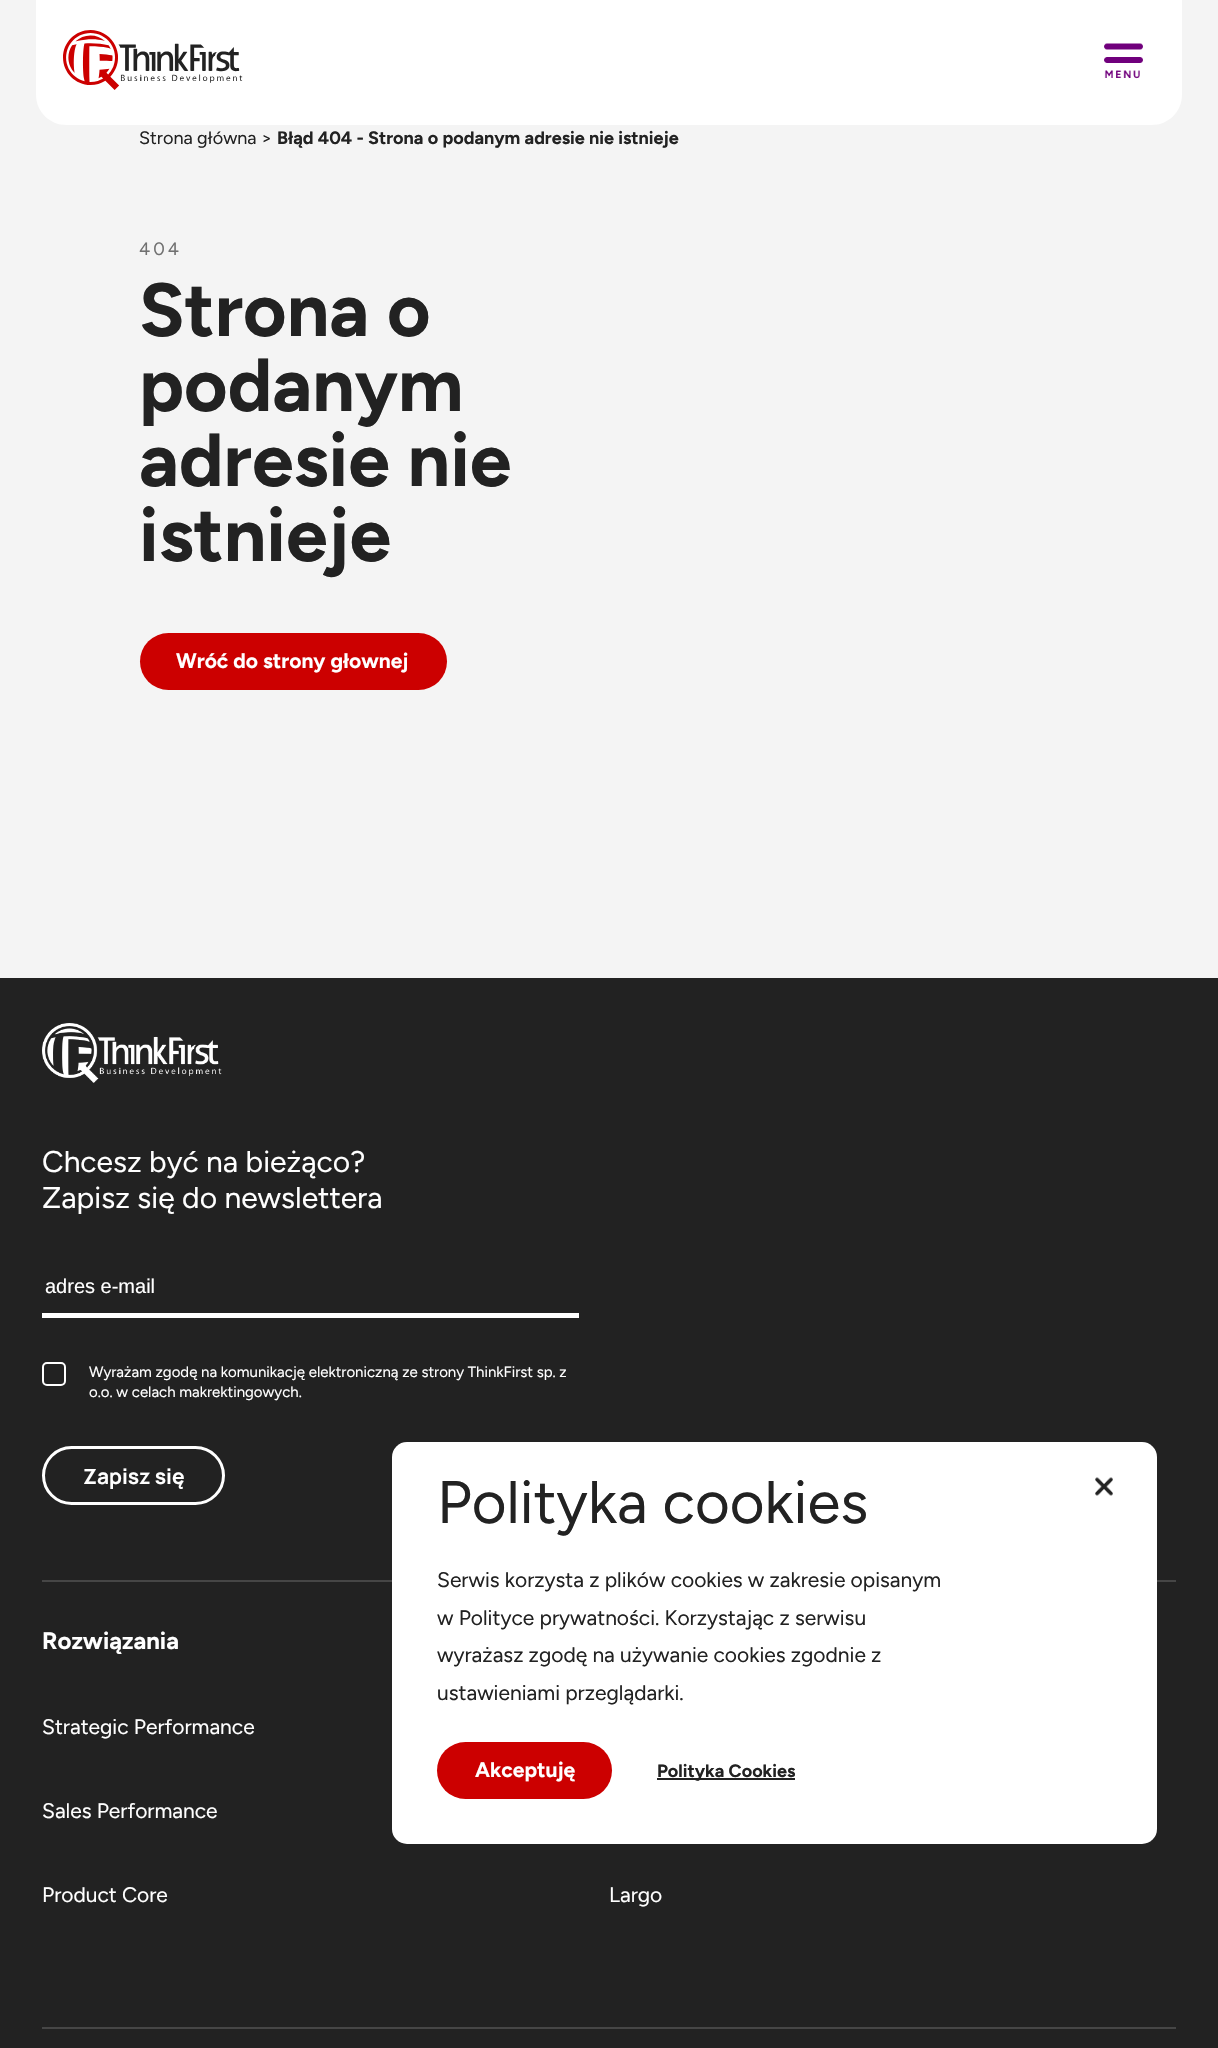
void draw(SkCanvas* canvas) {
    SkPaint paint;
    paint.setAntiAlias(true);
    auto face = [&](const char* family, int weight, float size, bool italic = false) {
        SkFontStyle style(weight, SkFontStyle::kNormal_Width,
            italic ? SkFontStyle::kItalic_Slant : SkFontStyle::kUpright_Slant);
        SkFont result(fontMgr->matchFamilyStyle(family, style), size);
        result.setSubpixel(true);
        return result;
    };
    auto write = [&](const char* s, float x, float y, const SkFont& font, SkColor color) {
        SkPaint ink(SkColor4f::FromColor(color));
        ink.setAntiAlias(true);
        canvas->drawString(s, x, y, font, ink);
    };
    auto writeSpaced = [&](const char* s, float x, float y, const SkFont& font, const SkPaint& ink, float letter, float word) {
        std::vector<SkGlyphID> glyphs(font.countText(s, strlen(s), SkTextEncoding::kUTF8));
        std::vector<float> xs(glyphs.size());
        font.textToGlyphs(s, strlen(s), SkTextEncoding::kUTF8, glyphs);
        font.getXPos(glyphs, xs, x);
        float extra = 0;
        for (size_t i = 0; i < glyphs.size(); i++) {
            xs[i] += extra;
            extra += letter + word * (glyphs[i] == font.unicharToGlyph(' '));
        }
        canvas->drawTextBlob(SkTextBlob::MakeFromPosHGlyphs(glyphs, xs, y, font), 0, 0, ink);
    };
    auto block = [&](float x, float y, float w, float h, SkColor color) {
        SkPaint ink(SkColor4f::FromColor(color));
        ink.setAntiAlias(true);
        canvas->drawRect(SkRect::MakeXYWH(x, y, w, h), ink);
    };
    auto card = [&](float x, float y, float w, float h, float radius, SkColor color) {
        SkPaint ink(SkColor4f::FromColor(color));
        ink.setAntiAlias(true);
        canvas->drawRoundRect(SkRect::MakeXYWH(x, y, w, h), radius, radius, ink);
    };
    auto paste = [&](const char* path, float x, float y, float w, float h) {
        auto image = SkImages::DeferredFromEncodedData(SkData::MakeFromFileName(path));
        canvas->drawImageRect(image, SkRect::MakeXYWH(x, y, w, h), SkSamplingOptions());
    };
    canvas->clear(SkColorSetRGB(244, 244, 244));
    paint.setColor(SK_ColorWHITE);
    canvas->drawPath(SkPathBuilder().moveTo(36, 0).lineTo(1182, 0).lineTo(1182, 95).cubicTo(1182, 111.5f, 1168.5f, 125, 1152, 125).lineTo(66, 125).cubicTo(49.5f, 125, 36, 111.5f, 36, 95).close().detach(), paint);
    paste("pic1.png", 63, 30, 180, 60);
    paste("pic2.png", 1104, 43, 39, 36);
    auto kFont1 = face("Figtree", 400, 18);
    write("Strona główna >", 139, 144, kFont1, SkColorSetRGB(34, 34, 34));
    auto kFont2 = face("Figtree", 700, 18);
    write("Błąd 404 - Strona o podanym adresie nie istnieje", 277, 144, kFont2, SkColorSetRGB(34, 34, 34));
    paint.setColor(SkColorSetRGB(113, 113, 113));
    writeSpaced("404", 139, 255, kFont1, paint, 3, 0);
    auto kFont3 = face("Figtree", 700, 75);
    write("Strona o", 139, 336, kFont3, SkColorSetRGB(34, 34, 34));
    write("podanym", 139, 411, kFont3, SkColorSetRGB(34, 34, 34));
    write("adresie nie", 139, 486, kFont3, SkColorSetRGB(34, 34, 34));
    write("istnieje", 139, 561, kFont3, SkColorSetRGB(34, 34, 34));
    card(140, 633, 307, 57, 28.5f, SkColorSetRGB(204, 0, 0));
    auto kFont4 = face("Figtree", 700, 21);
    write("Wróć do strony głownej", 176, 668, kFont4, SK_ColorWHITE);
    block(0, 978, 1218, 1070, SkColorSetRGB(34, 34, 34));
    block(42, 1580, 1134, 2, SkColorSetRGB(70, 70, 70));
    paste("pic3.png", 42, 1023, 180, 60);
    auto kFont5 = face("Figtree", 400, 30);
    write("Chcesz być na bieżąco?", 42, 1172, kFont5, SK_ColorWHITE);
    write("Zapisz się do newslettera", 42, 1208, kFont5, SK_ColorWHITE);
    block(42, 1313, 537, 5, SK_ColorWHITE);
    auto kFont6 = face("Liberation Sans", 400, 20);
    write("adres e-mail", 45, 1293, kFont6, SK_ColorWHITE);
    paint.setStyle(SkPaint::kStroke_Style);
    paint.setStrokeWidth(2);
    paint.setColor(SK_ColorWHITE);
    canvas->drawRoundRect(SkRect::MakeXYWH(43, 1363, 22, 22), 4, 4, paint);
    auto kFont7 = face("Figtree", 400, 15);
    write("Wyrażam zgodę na komunikację elektroniczną ze strony ThinkFirst sp. z", 89, 1377, kFont7, SK_ColorWHITE);
    write("o.o. w celach makrektingowych.", 89, 1397, kFont7, SK_ColorWHITE);
    paint.setStrokeWidth(3);
    canvas->drawRoundRect(SkRect::MakeXYWH(43.5f, 1447.5f, 180, 56), 28, 28, paint);
    auto kFont8 = face("Manrope", 200, 21);
    write("Zapisz się", 83, 1484, kFont8, SK_ColorWHITE);
    block(42, 2027, 1134, 2, SkColorSetRGB(70, 70, 70));
    auto kFont9 = face("Figtree", 700, 24);
    write("Rozwiązania", 42, 1649, kFont9, SK_ColorWHITE);
    auto kFont10 = face("Figtree", 400, 21);
    write("Strategic Performance", 42, 1734, kFont10, SK_ColorWHITE);
    write("Sales Performance", 42, 1818, kFont10, SK_ColorWHITE);
    write("Product Core", 42, 1902, kFont10, SK_ColorWHITE);
    write("Largo", 609, 1902, kFont10, SK_ColorWHITE);
    card(392, 1442, 765, 402, 15, SK_ColorWHITE);
    auto kFont11 = face("Figtree", 400, 60);
    write("Polityka cookies", 437, 1523, kFont11, SkColorSetRGB(34, 34, 34));
    paste("pic4.png", 1095, 1477, 18, 19);
    write("Serwis korzysta z plików cookies w zakresie opisanym", 437, 1587, kFont10, SkColorSetRGB(34, 34, 34));
    write("w Polityce prywatności. Korzystając z serwisu", 437, 1625, kFont10, SkColorSetRGB(34, 34, 34));
    write("wyrażasz zgodę na używanie cookies zgodnie z", 437, 1662, kFont10, SkColorSetRGB(34, 34, 34));
    write("ustawieniami przeglądarki.", 437, 1700, kFont10, SkColorSetRGB(34, 34, 34));
    card(437, 1742, 175, 57, 28.5f, SkColorSetRGB(204, 0, 0));
    write("Akceptuję", 475, 1777, kFont4, SK_ColorWHITE);
    block(657, 1778, 138, 2, SkColorSetRGB(34, 34, 34));
    write("Polityka Cookies", 657, 1777, kFont2, SkColorSetRGB(34, 34, 34));
}
